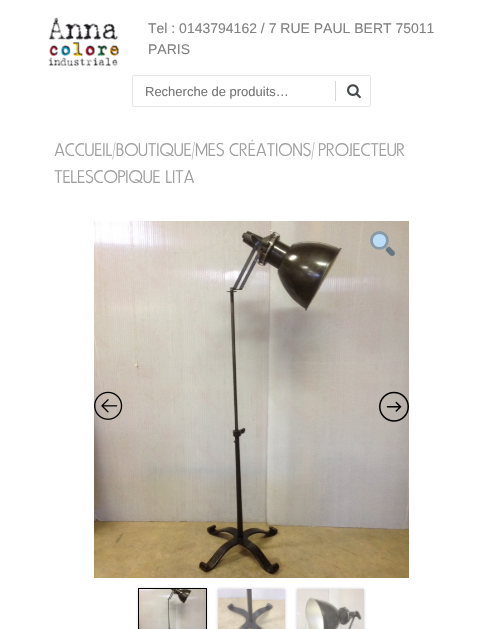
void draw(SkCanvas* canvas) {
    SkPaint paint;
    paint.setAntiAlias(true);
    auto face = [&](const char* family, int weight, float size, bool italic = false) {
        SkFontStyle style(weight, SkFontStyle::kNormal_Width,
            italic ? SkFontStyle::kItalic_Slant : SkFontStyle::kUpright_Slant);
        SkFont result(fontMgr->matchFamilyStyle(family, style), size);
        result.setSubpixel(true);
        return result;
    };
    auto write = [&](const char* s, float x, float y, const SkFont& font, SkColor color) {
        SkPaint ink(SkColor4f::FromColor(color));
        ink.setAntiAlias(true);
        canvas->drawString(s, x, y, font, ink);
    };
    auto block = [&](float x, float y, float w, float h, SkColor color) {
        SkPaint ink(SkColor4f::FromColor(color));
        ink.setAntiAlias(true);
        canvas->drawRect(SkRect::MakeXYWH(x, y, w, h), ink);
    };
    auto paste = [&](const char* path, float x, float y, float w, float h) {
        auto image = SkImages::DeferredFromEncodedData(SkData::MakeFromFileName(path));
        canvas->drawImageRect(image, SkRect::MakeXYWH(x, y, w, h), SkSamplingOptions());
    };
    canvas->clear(SK_ColorWHITE);
    paste("pic1.png", 48, 17, 72, 50);
    auto kFont1 = face("Liberation Sans", 400, 14);
    write("Tel : 0143794162 / 7 RUE PAUL BERT 75011", 148, 33, kFont1, SkColorSetRGB(128, 128, 128));
    write("PARIS", 148, 54, kFont1, SkColorSetRGB(128, 128, 128));
    paint.setStyle(SkPaint::kStroke_Style);
    paint.setStrokeWidth(1);
    paint.setColor(SkColorSetRGB(229, 229, 229));
    canvas->drawRoundRect(SkRect::MakeXYWH(132.5f, 75.5f, 238, 31), 1.5f, 1.5f, paint);
    auto kFont2 = face("Liberation Sans", 400, 13);
    write("Recherche de produits…", 145, 96, kFont2, SkColorSetRGB(117, 117, 117));
    block(335, 81, 1, 20, SkColorSetRGB(215, 215, 215));
    paste("pic2.png", 347, 84, 14, 15);
    block(369, 76, 1, 30, SK_ColorWHITE);
    auto kFont3 = face("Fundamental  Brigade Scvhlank", 100, 18);
    write("ACCUEIL/BOUTIQUE/MES CRÉATIONS/", 54, 156, kFont3, SkColorSetRGB(158, 158, 158));
    write("PROJECTEUR", 318, 156, kFont3, SkColorSetRGB(158, 158, 158));
    write("TELESCOPIQUE LITA", 54, 183, kFont3, SkColorSetRGB(158, 158, 158));
    paste("pic3.png", 94, 221, 315, 357);
    paste("pic4.png", 370, 231, 25, 25);
    paste("pic5.png", 94, 391, 29, 29);
    paste("pic6.png", 379, 391, 30, 31);
    paint.setColor(SK_ColorBLACK);
    canvas->drawRect(SkRect::MakeXYWH(138.5f, 588.5f, 68, 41), paint);
    paint.setStyle(SkPaint::kFill_Style);
    paint.setColor(SkColorSetARGB(77, 0, 0, 0));
    paint.setMaskFilter(SkMaskFilter::MakeBlur(kNormal_SkBlurStyle, 1.5f));
    canvas->drawRect(SkRect::MakeXYWH(139, 589, 67, 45), paint);
    paint.setMaskFilter(nullptr);
    paste("pic7.png", 139, 589, 67, 40);
    canvas->save();
    canvas->clipPath(SkPathBuilder(SkPathFillType::kEvenOdd).moveTo(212, 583).lineTo(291, 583).lineTo(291, 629).lineTo(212, 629).close().moveTo(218, 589).lineTo(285, 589).lineTo(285, 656).lineTo(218, 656).close().detach(), true);
    paint.setColor(SkColorSetARGB(77, 77, 77, 77));
    paint.setMaskFilter(SkMaskFilter::MakeBlur(kNormal_SkBlurStyle, 1.5f));
    canvas->drawRect(SkRect::MakeXYWH(218, 589, 67, 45), paint);
    paint.setMaskFilter(nullptr);
    canvas->restore();
    paste("pic8.png", 218, 589, 67, 40);
    canvas->save();
    canvas->clipPath(SkPathBuilder(SkPathFillType::kEvenOdd).moveTo(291, 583).lineTo(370, 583).lineTo(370, 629).lineTo(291, 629).close().moveTo(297, 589).lineTo(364, 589).lineTo(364, 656).lineTo(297, 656).close().detach(), true);
    paint.setMaskFilter(SkMaskFilter::MakeBlur(kNormal_SkBlurStyle, 1.5f));
    canvas->drawRect(SkRect::MakeXYWH(297, 589, 67, 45), paint);
    paint.setMaskFilter(nullptr);
    canvas->restore();
    paste("pic9.png", 297, 589, 67, 40);
}
